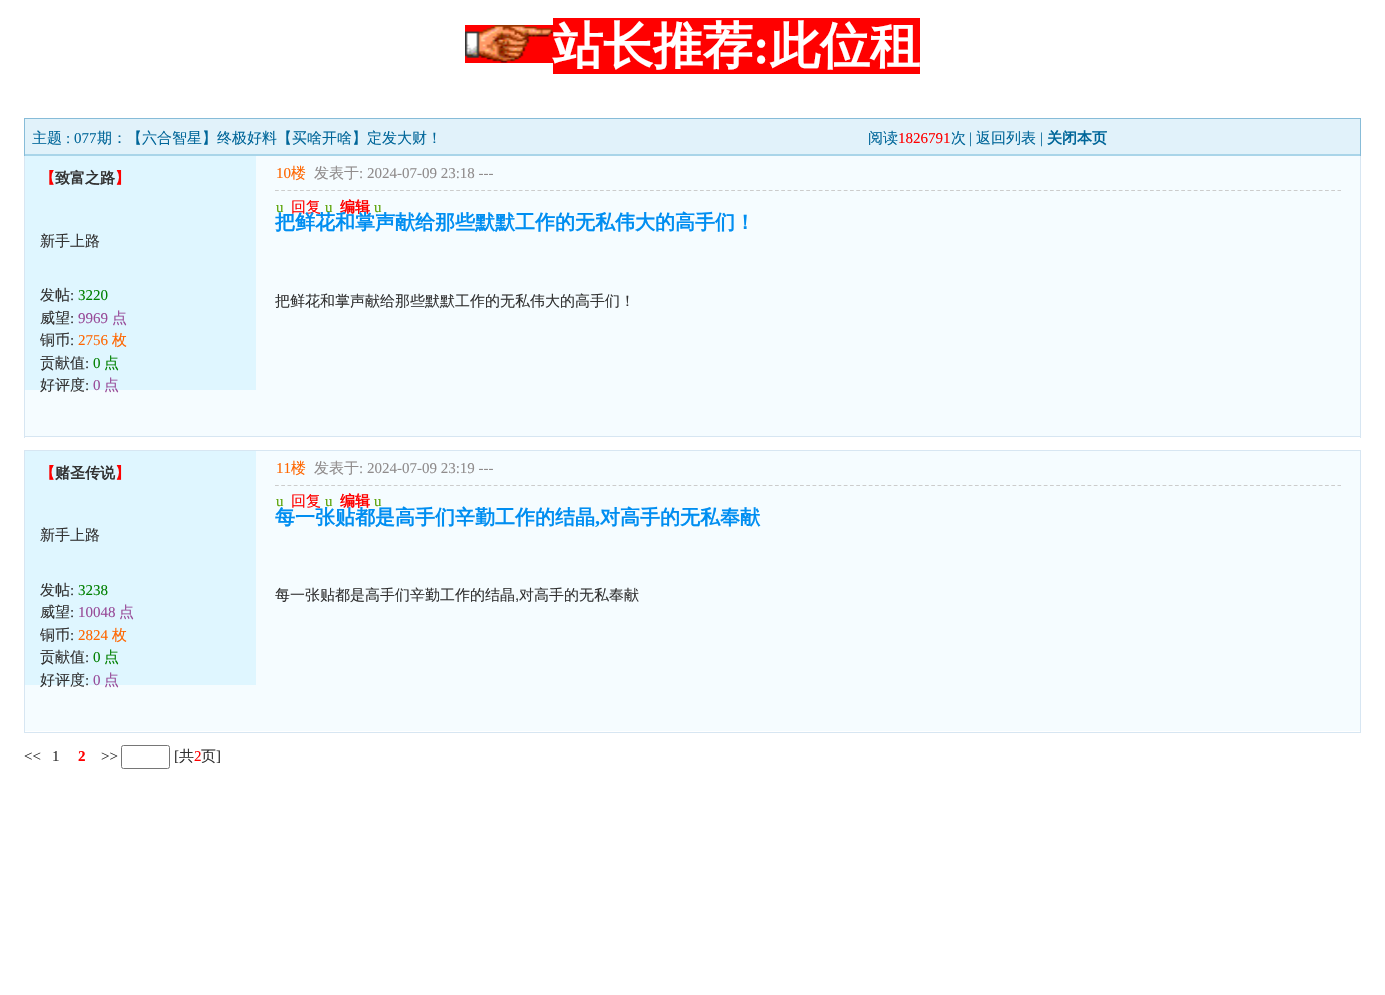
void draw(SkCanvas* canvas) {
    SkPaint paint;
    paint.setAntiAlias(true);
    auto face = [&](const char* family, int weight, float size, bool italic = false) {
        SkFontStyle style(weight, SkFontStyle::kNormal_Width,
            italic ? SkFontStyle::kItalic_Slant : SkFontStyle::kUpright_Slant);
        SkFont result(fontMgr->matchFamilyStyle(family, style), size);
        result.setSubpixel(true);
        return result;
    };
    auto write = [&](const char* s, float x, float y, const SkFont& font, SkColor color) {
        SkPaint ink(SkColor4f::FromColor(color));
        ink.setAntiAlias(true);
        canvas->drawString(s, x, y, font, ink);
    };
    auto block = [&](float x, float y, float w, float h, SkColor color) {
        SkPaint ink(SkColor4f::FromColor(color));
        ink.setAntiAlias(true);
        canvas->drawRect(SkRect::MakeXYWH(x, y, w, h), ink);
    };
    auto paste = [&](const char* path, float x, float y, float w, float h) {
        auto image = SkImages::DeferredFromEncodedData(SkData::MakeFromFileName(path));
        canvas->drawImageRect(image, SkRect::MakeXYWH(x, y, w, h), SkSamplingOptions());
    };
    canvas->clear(SK_ColorWHITE);
    block(465, 25, 88, 38, SkColorSetRGB(255, 0, 0));
    paste("pic1.png", 465, 25, 88, 38);
    block(553, 18, 367, 56, SkColorSetRGB(255, 0, 0));
    auto kFont1 = face("WenQuanYi Zen Hei", 700, 50);
    write("站长推荐", 553, 63, kFont1, SK_ColorWHITE);
    auto kFont2 = face("Liberation Serif", 700, 50);
    write(":", 753, 63, kFont2, SK_ColorWHITE);
    write("此位租", 770, 63, kFont1, SK_ColorWHITE);
    block(24, 118, 1337, 1, SkColorSetRGB(135, 188, 216));
    block(1360, 118, 1, 38, SkColorSetRGB(135, 188, 216));
    block(24, 118, 1, 38, SkColorSetRGB(135, 188, 216));
    block(25, 155, 1335, 1, SkColorSetRGB(169, 213, 233));
    block(25, 119, 1335, 35, SkColorSetRGB(225, 242, 250));
    block(25, 154, 1335, 1, SkColorSetRGB(169, 213, 233));
    auto kFont3 = face("WenQuanYi Zen Hei", 500, 15);
    write("主题", 32, 143, kFont3, SkColorSetRGB(0, 102, 153));
    auto kFont4 = face("Liberation Serif", 400, 15);
    write(": 077", 66, 143, kFont4, SkColorSetRGB(0, 102, 153));
    write("期：【六合智星】终极好料【买啥开啥】定发大财！", 97, 143, kFont3, SkColorSetRGB(0, 102, 153));
    write("阅读", 868, 143, kFont3, SkColorSetRGB(0, 102, 153));
    write("1826791", 898, 143, kFont4, SkColorSetRGB(255, 0, 0));
    write("次", 951, 143, kFont3, SkColorSetRGB(0, 102, 153));
    write("|", 969, 143, kFont4, SkColorSetRGB(0, 102, 153));
    write("返回列表", 976, 143, kFont3, SkColorSetRGB(0, 102, 153));
    write("|", 1040, 143, kFont4, SkColorSetRGB(0, 102, 153));
    auto kFont5 = face("WenQuanYi Zen Hei", 700, 15);
    write("关闭本页", 1047, 143, kFont5, SkColorSetRGB(0, 102, 153));
    block(1360, 156, 1, 282, SkColorSetRGB(215, 230, 242));
    block(24, 436, 1337, 1, SkColorSetRGB(215, 230, 242));
    block(24, 156, 1, 282, SkColorSetRGB(215, 230, 242));
    block(25, 156, 231, 234, SkColorSetRGB(223, 246, 255));
    write("【", 40, 183, kFont5, SkColorSetRGB(255, 0, 0));
    write("致富之路", 55, 183, kFont5, SkColorSetRGB(51, 51, 51));
    write("】", 115, 183, kFont5, SkColorSetRGB(255, 0, 0));
    write("新手上路", 40, 246, kFont3, SkColorSetRGB(51, 51, 51));
    write("发帖", 40, 300, kFont3, SkColorSetRGB(51, 51, 51));
    write(":", 70, 300, kFont4, SkColorSetRGB(51, 51, 51));
    write("3220", 78, 300, kFont4, SkColorSetRGB(0, 128, 0));
    write("威望", 40, 323, kFont3, SkColorSetRGB(51, 51, 51));
    write(":", 70, 323, kFont4, SkColorSetRGB(51, 51, 51));
    write("9969", 78, 323, kFont4, SkColorSetRGB(152, 75, 152));
    write("点", 112, 323, kFont3, SkColorSetRGB(152, 75, 152));
    write("铜币", 40, 345, kFont3, SkColorSetRGB(51, 51, 51));
    write(":", 70, 345, kFont4, SkColorSetRGB(51, 51, 51));
    write("2756", 78, 345, kFont4, SkColorSetRGB(255, 102, 0));
    write("枚", 112, 345, kFont3, SkColorSetRGB(255, 102, 0));
    write("贡献值", 40, 368, kFont3, SkColorSetRGB(51, 51, 51));
    write(":", 85, 368, kFont4, SkColorSetRGB(51, 51, 51));
    write("0", 93, 368, kFont4, SkColorSetRGB(0, 128, 0));
    write("点", 104, 368, kFont3, SkColorSetRGB(0, 128, 0));
    block(25, 390, 1335, 46, SkColorSetRGB(245, 252, 255));
    write("好评度", 40, 390, kFont3, SkColorSetRGB(51, 51, 51));
    write(":", 85, 390, kFont4, SkColorSetRGB(51, 51, 51));
    write("0", 93, 390, kFont4, SkColorSetRGB(152, 75, 152));
    write("点", 104, 390, kFont3, SkColorSetRGB(152, 75, 152));
    block(256, 156, 1104, 234, SkColorSetRGB(245, 252, 255));
    paint.setStyle(SkPaint::kStroke_Style);
    paint.setStrokeWidth(1.2f);
    paint.setColor(SkColorSetRGB(204, 204, 204));
    paint.setPathEffect(SkDashPathEffect::Make({{3.75f, 2.5f}}, 0));
    canvas->drawPath(SkPathBuilder().moveTo(275, 190.5f).lineTo(1341, 190.5f).detach(), paint);
    paint.setPathEffect(nullptr);
    write("10", 276, 178, kFont4, SkColorSetRGB(255, 102, 0));
    write("楼", 291, 178, kFont3, SkColorSetRGB(255, 102, 0));
    write("发表于", 314, 178, kFont3, SkColorSetRGB(144, 140, 140));
    write(": 2024-07-09 23:18 ---", 359, 178, kFont4, SkColorSetRGB(144, 140, 140));
    write("u", 276, 212, kFont4, SkColorSetRGB(92, 164, 8));
    write("回复", 291, 212, kFont3, SkColorSetRGB(255, 0, 0));
    write("u", 325, 212, kFont4, SkColorSetRGB(92, 164, 8));
    write("编辑", 340, 212, kFont5, SkColorSetRGB(255, 0, 0));
    write("u", 374, 212, kFont4, SkColorSetRGB(92, 164, 8));
    auto kFont6 = face("WenQuanYi Zen Hei", 700, 20);
    write("把鲜花和掌声献给那些默默工作的无私伟大的高手们！", 275, 229, kFont6, SkColorSetRGB(0, 142, 241));
    write("把鲜花和掌声献给那些默默工作的无私伟大的高手们！", 275, 306, kFont3, SkColorSetRGB(51, 51, 51));
    paint.setStrokeWidth(1);
    paint.setColor(SkColorSetRGB(215, 230, 242));
    canvas->drawRect(SkRect::MakeXYWH(24.5f, 450.5f, 1336, 282), paint);
    block(25, 451, 231, 234, SkColorSetRGB(223, 246, 255));
    write("【", 40, 478, kFont5, SkColorSetRGB(255, 0, 0));
    write("赌圣传说", 55, 478, kFont5, SkColorSetRGB(51, 51, 51));
    write("】", 115, 478, kFont5, SkColorSetRGB(255, 0, 0));
    write("新手上路", 40, 540, kFont3, SkColorSetRGB(51, 51, 51));
    write("发帖", 40, 595, kFont3, SkColorSetRGB(51, 51, 51));
    write(":", 70, 595, kFont4, SkColorSetRGB(51, 51, 51));
    write("3238", 78, 595, kFont4, SkColorSetRGB(0, 128, 0));
    write("威望", 40, 617, kFont3, SkColorSetRGB(51, 51, 51));
    write(":", 70, 617, kFont4, SkColorSetRGB(51, 51, 51));
    write("10048", 78, 617, kFont4, SkColorSetRGB(152, 75, 152));
    write("点", 119, 617, kFont3, SkColorSetRGB(152, 75, 152));
    write("铜币", 40, 640, kFont3, SkColorSetRGB(51, 51, 51));
    write(":", 70, 640, kFont4, SkColorSetRGB(51, 51, 51));
    write("2824", 78, 640, kFont4, SkColorSetRGB(255, 102, 0));
    write("枚", 112, 640, kFont3, SkColorSetRGB(255, 102, 0));
    write("贡献值", 40, 662, kFont3, SkColorSetRGB(51, 51, 51));
    write(":", 85, 662, kFont4, SkColorSetRGB(51, 51, 51));
    write("0", 93, 662, kFont4, SkColorSetRGB(0, 128, 0));
    write("点", 104, 662, kFont3, SkColorSetRGB(0, 128, 0));
    block(25, 685, 1335, 46, SkColorSetRGB(245, 252, 255));
    write("好评度", 40, 685, kFont3, SkColorSetRGB(51, 51, 51));
    write(":", 85, 685, kFont4, SkColorSetRGB(51, 51, 51));
    write("0", 93, 685, kFont4, SkColorSetRGB(152, 75, 152));
    write("点", 104, 685, kFont3, SkColorSetRGB(152, 75, 152));
    block(256, 451, 1104, 234, SkColorSetRGB(245, 252, 255));
    paint.setStrokeWidth(1.2f);
    paint.setColor(SkColorSetRGB(204, 204, 204));
    paint.setPathEffect(SkDashPathEffect::Make({{3.75f, 2.5f}}, 0));
    canvas->drawPath(SkPathBuilder().moveTo(275, 485.5f).lineTo(1341, 485.5f).detach(), paint);
    paint.setPathEffect(nullptr);
    write("11", 276, 473, kFont4, SkColorSetRGB(255, 102, 0));
    write("楼", 291, 473, kFont3, SkColorSetRGB(255, 102, 0));
    write("发表于", 314, 473, kFont3, SkColorSetRGB(144, 140, 140));
    write(": 2024-07-09 23:19 ---", 359, 473, kFont4, SkColorSetRGB(144, 140, 140));
    write("u", 276, 506, kFont4, SkColorSetRGB(92, 164, 8));
    write("回复", 291, 506, kFont3, SkColorSetRGB(255, 0, 0));
    write("u", 325, 506, kFont4, SkColorSetRGB(92, 164, 8));
    write("编辑", 340, 506, kFont5, SkColorSetRGB(255, 0, 0));
    write("u", 374, 506, kFont4, SkColorSetRGB(92, 164, 8));
    write("每一张贴都是高手们辛勤工作的结晶", 275, 524, kFont6, SkColorSetRGB(0, 142, 241));
    auto kFont7 = face("Liberation Serif", 700, 20);
    write(",", 595, 524, kFont7, SkColorSetRGB(0, 142, 241));
    write("对高手的无私奉献", 600, 524, kFont6, SkColorSetRGB(0, 142, 241));
    write("每一张贴都是高手们辛勤工作的结晶", 275, 600, kFont3, SkColorSetRGB(51, 51, 51));
    auto kFont8 = face("Liberation Sans", 400, 15);
    write(",", 515, 600, kFont8, SkColorSetRGB(51, 51, 51));
    write("对高手的无私奉献", 519, 600, kFont3, SkColorSetRGB(51, 51, 51));
    write("<<", 24, 761, kFont4, SkColorSetRGB(51, 51, 51));
    write("1", 52, 761, kFont4, SkColorSetRGB(51, 51, 51));
    auto kFont9 = face("Liberation Serif", 700, 15);
    write("2", 78, 761, kFont9, SkColorSetRGB(255, 0, 0));
    write(">>", 101, 761, kFont4, SkColorSetRGB(51, 51, 51));
    paint.setStrokeWidth(1);
    paint.setColor(SkColorSetRGB(118, 118, 118));
    canvas->drawRoundRect(SkRect::MakeXYWH(121.5f, 745.5f, 48, 23), 2, 2, paint);
    write("[", 174, 761, kFont4, SkColorSetRGB(51, 51, 51));
    write("共", 179, 761, kFont3, SkColorSetRGB(51, 51, 51));
    write("2", 194, 761, kFont4, SkColorSetRGB(255, 0, 0));
    write("页", 201, 761, kFont3, SkColorSetRGB(51, 51, 51));
    write("]", 216, 761, kFont4, SkColorSetRGB(51, 51, 51));
}
